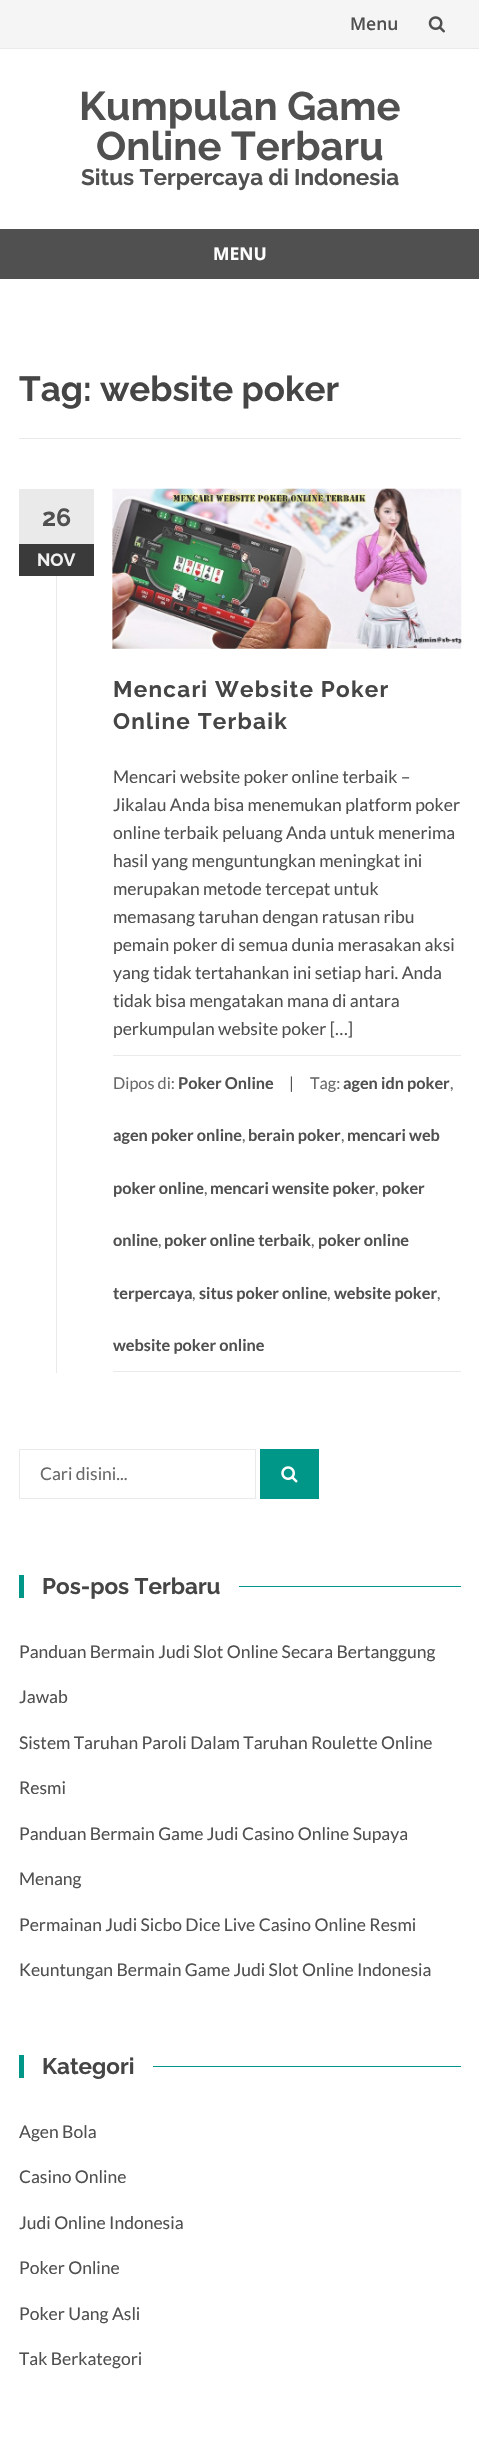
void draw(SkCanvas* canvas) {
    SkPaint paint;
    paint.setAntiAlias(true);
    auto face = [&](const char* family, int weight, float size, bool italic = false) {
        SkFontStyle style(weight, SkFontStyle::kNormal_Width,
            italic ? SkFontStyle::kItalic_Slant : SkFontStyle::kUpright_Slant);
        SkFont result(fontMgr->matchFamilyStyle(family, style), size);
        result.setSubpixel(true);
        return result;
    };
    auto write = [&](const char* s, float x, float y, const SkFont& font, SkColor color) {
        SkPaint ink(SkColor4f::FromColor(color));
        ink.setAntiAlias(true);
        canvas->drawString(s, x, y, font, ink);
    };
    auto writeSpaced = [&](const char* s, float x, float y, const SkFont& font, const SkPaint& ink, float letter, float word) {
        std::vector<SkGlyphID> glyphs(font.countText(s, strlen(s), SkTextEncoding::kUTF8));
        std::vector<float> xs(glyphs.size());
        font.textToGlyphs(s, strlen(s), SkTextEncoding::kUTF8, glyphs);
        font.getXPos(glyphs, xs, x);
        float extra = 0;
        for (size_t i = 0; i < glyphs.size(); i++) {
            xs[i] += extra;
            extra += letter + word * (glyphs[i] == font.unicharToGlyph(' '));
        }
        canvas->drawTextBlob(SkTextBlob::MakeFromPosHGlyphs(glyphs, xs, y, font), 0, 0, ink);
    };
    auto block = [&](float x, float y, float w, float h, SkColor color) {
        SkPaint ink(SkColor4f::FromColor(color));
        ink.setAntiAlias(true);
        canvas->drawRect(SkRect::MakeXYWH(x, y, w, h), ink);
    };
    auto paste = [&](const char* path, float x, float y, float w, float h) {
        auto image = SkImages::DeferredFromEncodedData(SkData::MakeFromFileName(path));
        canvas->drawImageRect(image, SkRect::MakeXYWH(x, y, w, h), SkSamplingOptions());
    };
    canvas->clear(SK_ColorWHITE);
    block(0, 0, 479, 48, SkColorSetRGB(245, 245, 245));
    block(0, 48, 479, 1, SkColorSetRGB(234, 234, 234));
    auto kFont1 = face("Open Sans", 600, 17.5f);
    write("Menu", 350, 30, kFont1, SkColorSetRGB(80, 80, 80));
    paste("pic1.png", 428, 16, 17, 17);
    auto kFont2 = face("Raleway", 700, 40);
    write("Kumpulan Game", 79, 120, kFont2, SkColorSetRGB(80, 80, 80));
    write("Online Terbaru", 96, 160, kFont2, SkColorSetRGB(80, 80, 80));
    auto kFont3 = face("Raleway", 700, 22.5f);
    write("Situs Terpercaya di Indonesia", 81, 185, kFont3, SkColorSetRGB(80, 80, 80));
    block(0, 229, 479, 50, SkColorSetRGB(80, 80, 80));
    auto kFont4 = face("Open Sans", 700, 17.5f);
    write("MENU", 213, 260, kFont4, SK_ColorWHITE);
    block(19, 438, 442, 1, SkColorSetRGB(234, 234, 234));
    auto kFont5 = face("Raleway", 700, 35);
    write("Tag: website poker", 19, 401, kFont5, SkColorSetRGB(69, 69, 69));
    block(19, 489, 75, 55, SkColorSetRGB(234, 234, 234));
    auto kFont6 = face("Raleway", 700, 25);
    write("26", 42, 526, kFont6, SkColorSetRGB(80, 80, 80));
    block(19, 544, 75, 32, SkColorSetRGB(58, 58, 58));
    auto kFont7 = face("Raleway", 700, 17.5f);
    write("NOV", 37, 566, kFont7, SkColorSetRGB(241, 241, 241));
    paste("pic2.png", 112, 488, 350, 161);
    block(113, 489, 348, 160, SkColorSetARGB(41, 255, 255, 255));
    block(56, 576, 1, 797, SkColorSetRGB(234, 234, 234));
    paint.setColor(SkColorSetRGB(69, 69, 69));
    writeSpaced("Mencari Website Poker", 113, 697, kFont3, paint, 1.25f, 0);
    writeSpaced("Online Terbaik", 113, 729, kFont3, paint, 1.25f, 0);
    auto kFont8 = face("Lato", 400, 17.5f);
    write("Mencari website poker online terbaik –", 113, 783, kFont8, SkColorSetRGB(80, 80, 80));
    write("Jikalau Anda bisa menemukan platform poker", 113, 811, kFont8, SkColorSetRGB(80, 80, 80));
    write("online terbaik peluang Anda untuk menerima", 113, 839, kFont8, SkColorSetRGB(80, 80, 80));
    write("hasil yang menguntungkan meningkat ini", 113, 867, kFont8, SkColorSetRGB(80, 80, 80));
    write("merupakan metode tercepat untuk", 113, 895, kFont8, SkColorSetRGB(80, 80, 80));
    write("memasang taruhan dengan ratusan ribu", 113, 923, kFont8, SkColorSetRGB(80, 80, 80));
    write("pemain poker di semua dunia merasakan aksi", 113, 951, kFont8, SkColorSetRGB(80, 80, 80));
    write("yang tidak tertahankan ini setiap hari. Anda", 113, 979, kFont8, SkColorSetRGB(80, 80, 80));
    write("tidak bisa mengatakan mana di antara", 113, 1007, kFont8, SkColorSetRGB(80, 80, 80));
    write("perkumpulan website poker […]", 113, 1035, kFont8, SkColorSetRGB(80, 80, 80));
    block(113, 1055, 348, 1, SkColorSetRGB(234, 234, 234));
    block(113, 1371, 348, 1, SkColorSetRGB(234, 234, 234));
    auto kFont9 = face("Lato", 400, 16.25f);
    write("Dipos di:", 113, 1089, kFont9, SkColorSetRGB(106, 106, 106));
    auto kFont10 = face("Lato", 700, 16.25f);
    write("Poker Online", 178, 1089, kFont10, SkColorSetRGB(80, 80, 80));
    write("|", 289, 1089, kFont9, SkColorSetRGB(80, 80, 80));
    write("Tag:", 310, 1089, kFont9, SkColorSetRGB(106, 106, 106));
    write("agen idn poker", 343, 1089, kFont10, SkColorSetRGB(80, 80, 80));
    write(",", 450, 1089, kFont9, SkColorSetRGB(106, 106, 106));
    write("agen poker online", 113, 1141, kFont10, SkColorSetRGB(80, 80, 80));
    write(",", 242, 1141, kFont9, SkColorSetRGB(106, 106, 106));
    write("berain poker", 248, 1141, kFont10, SkColorSetRGB(80, 80, 80));
    write(",", 341, 1141, kFont9, SkColorSetRGB(106, 106, 106));
    write("mencari web", 347, 1141, kFont10, SkColorSetRGB(80, 80, 80));
    write("poker online", 113, 1194, kFont10, SkColorSetRGB(80, 80, 80));
    write(",", 204, 1194, kFont9, SkColorSetRGB(106, 106, 106));
    write("mencari wensite poker", 210, 1194, kFont10, SkColorSetRGB(80, 80, 80));
    write(",", 375, 1194, kFont9, SkColorSetRGB(106, 106, 106));
    write("poker", 382, 1194, kFont10, SkColorSetRGB(80, 80, 80));
    write("online", 113, 1246, kFont10, SkColorSetRGB(80, 80, 80));
    write(",", 158, 1246, kFont9, SkColorSetRGB(106, 106, 106));
    write("poker online terbaik", 164, 1246, kFont10, SkColorSetRGB(80, 80, 80));
    write(",", 311, 1246, kFont9, SkColorSetRGB(106, 106, 106));
    write("poker online", 318, 1246, kFont10, SkColorSetRGB(80, 80, 80));
    write("terpercaya", 113, 1299, kFont10, SkColorSetRGB(80, 80, 80));
    write(",", 192, 1299, kFont9, SkColorSetRGB(106, 106, 106));
    write("situs poker online", 199, 1299, kFont10, SkColorSetRGB(80, 80, 80));
    write(",", 327, 1299, kFont9, SkColorSetRGB(106, 106, 106));
    write("website poker", 334, 1299, kFont10, SkColorSetRGB(80, 80, 80));
    write(",", 437, 1299, kFont9, SkColorSetRGB(106, 106, 106));
    write("website poker online", 113, 1351, kFont10, SkColorSetRGB(80, 80, 80));
    paint.setStyle(SkPaint::kStroke_Style);
    paint.setStrokeWidth(1);
    paint.setColor(SkColorSetRGB(234, 234, 234));
    canvas->drawRect(SkRect::MakeXYWH(19.5f, 1449.5f, 236, 49), paint);
    write("Cari disini...", 40, 1480, kFont8, SkColorSetRGB(106, 106, 106));
    block(260, 1449, 59, 50, SkColorSetRGB(0, 150, 136));
    paste("pic3.png", 281, 1466, 17, 17);
    block(19, 1575, 5, 23, SkColorSetRGB(0, 150, 136));
    write("Pos-pos Terbaru", 42, 1594, kFont3, SkColorSetRGB(69, 69, 69));
    block(239, 1586, 222, 1, SkColorSetRGB(0, 150, 136));
    write("Panduan Bermain Judi Slot Online Secara Bertanggung", 19, 1658, kFont8, SkColorSetRGB(80, 80, 80));
    write("Jawab", 19, 1703, kFont8, SkColorSetRGB(80, 80, 80));
    write("Sistem Taruhan Paroli Dalam Taruhan Roulette Online", 19, 1749, kFont8, SkColorSetRGB(80, 80, 80));
    write("Resmi", 19, 1794, kFont8, SkColorSetRGB(80, 80, 80));
    write("Panduan Bermain Game Judi Casino Online Supaya", 19, 1840, kFont8, SkColorSetRGB(80, 80, 80));
    write("Menang", 19, 1885, kFont8, SkColorSetRGB(80, 80, 80));
    write("Permainan Judi Sicbo Dice Live Casino Online Resmi", 19, 1931, kFont8, SkColorSetRGB(80, 80, 80));
    write("Keuntungan Bermain Game Judi Slot Online Indonesia", 19, 1976, kFont8, SkColorSetRGB(80, 80, 80));
    block(19, 2055, 5, 23, SkColorSetRGB(0, 150, 136));
    write("Kategori", 42, 2074, kFont3, SkColorSetRGB(69, 69, 69));
    block(153, 2066, 308, 1, SkColorSetRGB(0, 150, 136));
    write("Agen Bola", 19, 2138, kFont8, SkColorSetRGB(80, 80, 80));
    write("Casino Online", 19, 2183, kFont8, SkColorSetRGB(80, 80, 80));
    write("Judi Online Indonesia", 19, 2229, kFont8, SkColorSetRGB(80, 80, 80));
    write("Poker Online", 19, 2274, kFont8, SkColorSetRGB(80, 80, 80));
    write("Poker Uang Asli", 19, 2320, kFont8, SkColorSetRGB(80, 80, 80));
    write("Tak Berkategori", 19, 2365, kFont8, SkColorSetRGB(80, 80, 80));
}
